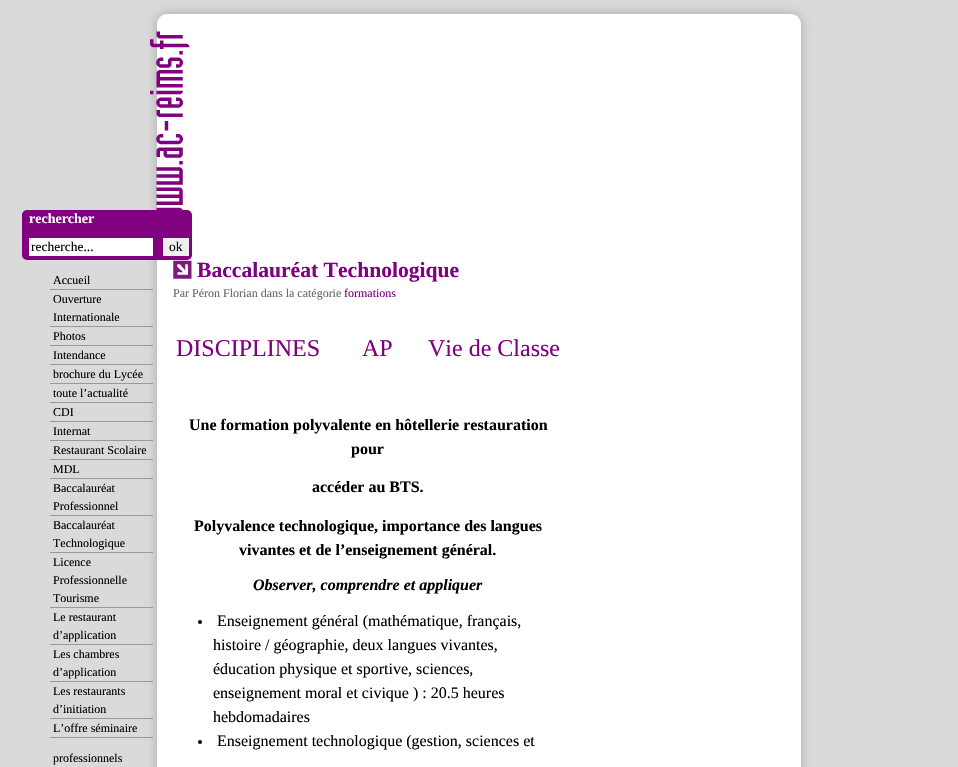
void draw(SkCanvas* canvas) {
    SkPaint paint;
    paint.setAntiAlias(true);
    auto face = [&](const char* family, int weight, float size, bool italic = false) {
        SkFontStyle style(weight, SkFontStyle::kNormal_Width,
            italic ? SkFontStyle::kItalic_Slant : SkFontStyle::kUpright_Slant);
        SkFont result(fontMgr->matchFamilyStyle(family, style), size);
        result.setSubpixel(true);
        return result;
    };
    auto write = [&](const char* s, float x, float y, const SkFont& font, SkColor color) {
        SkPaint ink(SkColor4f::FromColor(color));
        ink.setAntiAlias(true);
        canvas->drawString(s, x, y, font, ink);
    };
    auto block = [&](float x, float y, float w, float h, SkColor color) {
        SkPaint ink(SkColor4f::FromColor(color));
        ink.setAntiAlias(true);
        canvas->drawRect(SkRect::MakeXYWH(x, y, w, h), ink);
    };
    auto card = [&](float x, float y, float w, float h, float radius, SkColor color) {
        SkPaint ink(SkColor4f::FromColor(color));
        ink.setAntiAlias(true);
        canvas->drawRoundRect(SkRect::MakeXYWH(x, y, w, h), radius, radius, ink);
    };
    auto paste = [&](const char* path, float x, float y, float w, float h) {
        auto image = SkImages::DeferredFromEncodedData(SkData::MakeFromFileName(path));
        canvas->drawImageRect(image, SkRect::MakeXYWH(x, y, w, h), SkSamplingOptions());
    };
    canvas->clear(SkColorSetRGB(218, 218, 218));
    paint.setColor(SkColorSetRGB(170, 170, 170));
    paint.setMaskFilter(SkMaskFilter::MakeBlur(kNormal_SkBlurStyle, 6));
    canvas->drawRoundRect(SkRect::MakeXYWH(157, 14, 644, 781), 10, 10, paint);
    paint.setMaskFilter(nullptr);
    card(157, 14, 644, 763, 10, SK_ColorWHITE);
    paste("pic1.png", 150, 31, 40, 179);
    card(22, 210, 170, 50, 5, SkColorSetRGB(128, 0, 128));
    auto kFont1 = face("Liberation Serif", 700, 14);
    write("rechercher", 29, 223, kFont1, SK_ColorWHITE);
    block(29, 238, 124, 18, SK_ColorWHITE);
    auto kFont2 = face("Liberation Serif", 400, 13.5f);
    write("recherche...", 31, 251, kFont2, SK_ColorBLACK);
    block(163, 238, 26, 18, SkColorSetRGB(239, 239, 239));
    write("ok", 169, 251, kFont2, SK_ColorBLACK);
    block(50, 289, 103, 1, SkColorSetRGB(153, 153, 153));
    auto kFont3 = face("Liberation Serif", 400, 12);
    write("Accueil", 53, 284, kFont3, SK_ColorBLACK);
    block(50, 326, 103, 1, SkColorSetRGB(153, 153, 153));
    write("Ouverture", 53, 303, kFont3, SK_ColorBLACK);
    write("Internationale", 53, 321, kFont3, SK_ColorBLACK);
    block(50, 345, 103, 1, SkColorSetRGB(153, 153, 153));
    write("Photos", 53, 340, kFont3, SK_ColorBLACK);
    block(50, 364, 103, 1, SkColorSetRGB(153, 153, 153));
    write("Intendance", 53, 359, kFont3, SK_ColorBLACK);
    block(50, 383, 103, 1, SkColorSetRGB(153, 153, 153));
    write("brochure du Lycée", 53, 378, kFont3, SK_ColorBLACK);
    block(50, 402, 103, 1, SkColorSetRGB(153, 153, 153));
    write("toute l’actualité", 53, 397, kFont3, SK_ColorBLACK);
    block(50, 421, 103, 1, SkColorSetRGB(153, 153, 153));
    write("CDI", 53, 416, kFont3, SK_ColorBLACK);
    block(50, 440, 103, 1, SkColorSetRGB(153, 153, 153));
    write("Internat", 53, 435, kFont3, SK_ColorBLACK);
    block(50, 459, 103, 1, SkColorSetRGB(153, 153, 153));
    write("Restaurant Scolaire", 53, 454, kFont3, SK_ColorBLACK);
    block(50, 478, 103, 1, SkColorSetRGB(153, 153, 153));
    write("MDL", 53, 473, kFont3, SK_ColorBLACK);
    block(50, 515, 103, 1, SkColorSetRGB(153, 153, 153));
    write("Baccalauréat", 53, 492, kFont3, SK_ColorBLACK);
    write("Professionnel", 53, 510, kFont3, SK_ColorBLACK);
    block(50, 552, 103, 1, SkColorSetRGB(153, 153, 153));
    write("Baccalauréat", 53, 529, kFont3, SK_ColorBLACK);
    write("Technologique", 53, 547, kFont3, SK_ColorBLACK);
    block(50, 607, 103, 1, SkColorSetRGB(153, 153, 153));
    write("Licence", 53, 566, kFont3, SK_ColorBLACK);
    write("Professionnelle", 53, 584, kFont3, SK_ColorBLACK);
    write("Tourisme", 53, 602, kFont3, SK_ColorBLACK);
    block(50, 644, 103, 1, SkColorSetRGB(153, 153, 153));
    write("Le restaurant", 53, 621, kFont3, SK_ColorBLACK);
    write("d’application", 53, 639, kFont3, SK_ColorBLACK);
    block(50, 681, 103, 1, SkColorSetRGB(153, 153, 153));
    write("Les chambres", 53, 658, kFont3, SK_ColorBLACK);
    write("d’application", 53, 676, kFont3, SK_ColorBLACK);
    block(50, 718, 103, 1, SkColorSetRGB(153, 153, 153));
    write("Les restaurants", 53, 695, kFont3, SK_ColorBLACK);
    write("d’initiation", 53, 713, kFont3, SK_ColorBLACK);
    block(50, 737, 103, 1, SkColorSetRGB(153, 153, 153));
    write("L’offre séminaire", 53, 732, kFont3, SK_ColorBLACK);
    write("professionnels", 53, 762, kFont3, SK_ColorBLACK);
    paste("pic2.png", 173, 260, 19, 19);
    auto kFont4 = face("Liberation Serif", 700, 21.6f);
    write("Baccalauréat Technologique", 197, 277, kFont4, SkColorSetRGB(128, 0, 128));
    write("Par Péron Florian dans la catégorie", 173, 297, kFont3, SkColorSetRGB(102, 102, 102));
    write("formations", 344, 297, kFont3, SkColorSetRGB(128, 0, 128));
    auto kFont5 = face("Liberation Serif", 400, 24);
    write("DISCIPLINES", 176, 356, kFont5, SkColorSetRGB(128, 0, 128));
    write("AP", 362, 356, kFont5, SkColorSetRGB(128, 0, 128));
    write("Vie de Classe", 428, 356, kFont5, SkColorSetRGB(128, 0, 128));
    auto kFont6 = face("Liberation Serif", 700, 16);
    write("Une formation polyvalente en hôtellerie restauration", 189, 430, kFont6, SK_ColorBLACK);
    write("pour", 351, 454, kFont6, SK_ColorBLACK);
    write("accéder au BTS.", 312, 492, kFont6, SK_ColorBLACK);
    write("Polyvalence technologique, importance des langues", 194, 531, kFont6, SK_ColorBLACK);
    write("vivantes et de l’enseignement général.", 239, 555, kFont6, SK_ColorBLACK);
    auto kFont7 = face("Liberation Serif", 700, 16, true);
    write("Observer, comprendre et appliquer", 253, 590, kFont7, SK_ColorBLACK);
    paint.setColor(SK_ColorBLACK);
    canvas->drawCircle(200, 622, 2, paint);
    auto kFont8 = face("Liberation Serif", 400, 16);
    write("Enseignement général (mathématique, français,", 217, 626, kFont8, SK_ColorBLACK);
    write("histoire / géographie, deux langues vivantes,", 213, 650, kFont8, SK_ColorBLACK);
    write("éducation physique et sportive, sciences,", 213, 674, kFont8, SK_ColorBLACK);
    write("enseignement moral et civique ) : 20.5 heures", 213, 698, kFont8, SK_ColorBLACK);
    write("hebdomadaires", 213, 722, kFont8, SK_ColorBLACK);
    canvas->drawCircle(200, 742, 2, paint);
    write("Enseignement technologique (gestion, sciences et", 217, 746, kFont8, SK_ColorBLACK);
}
